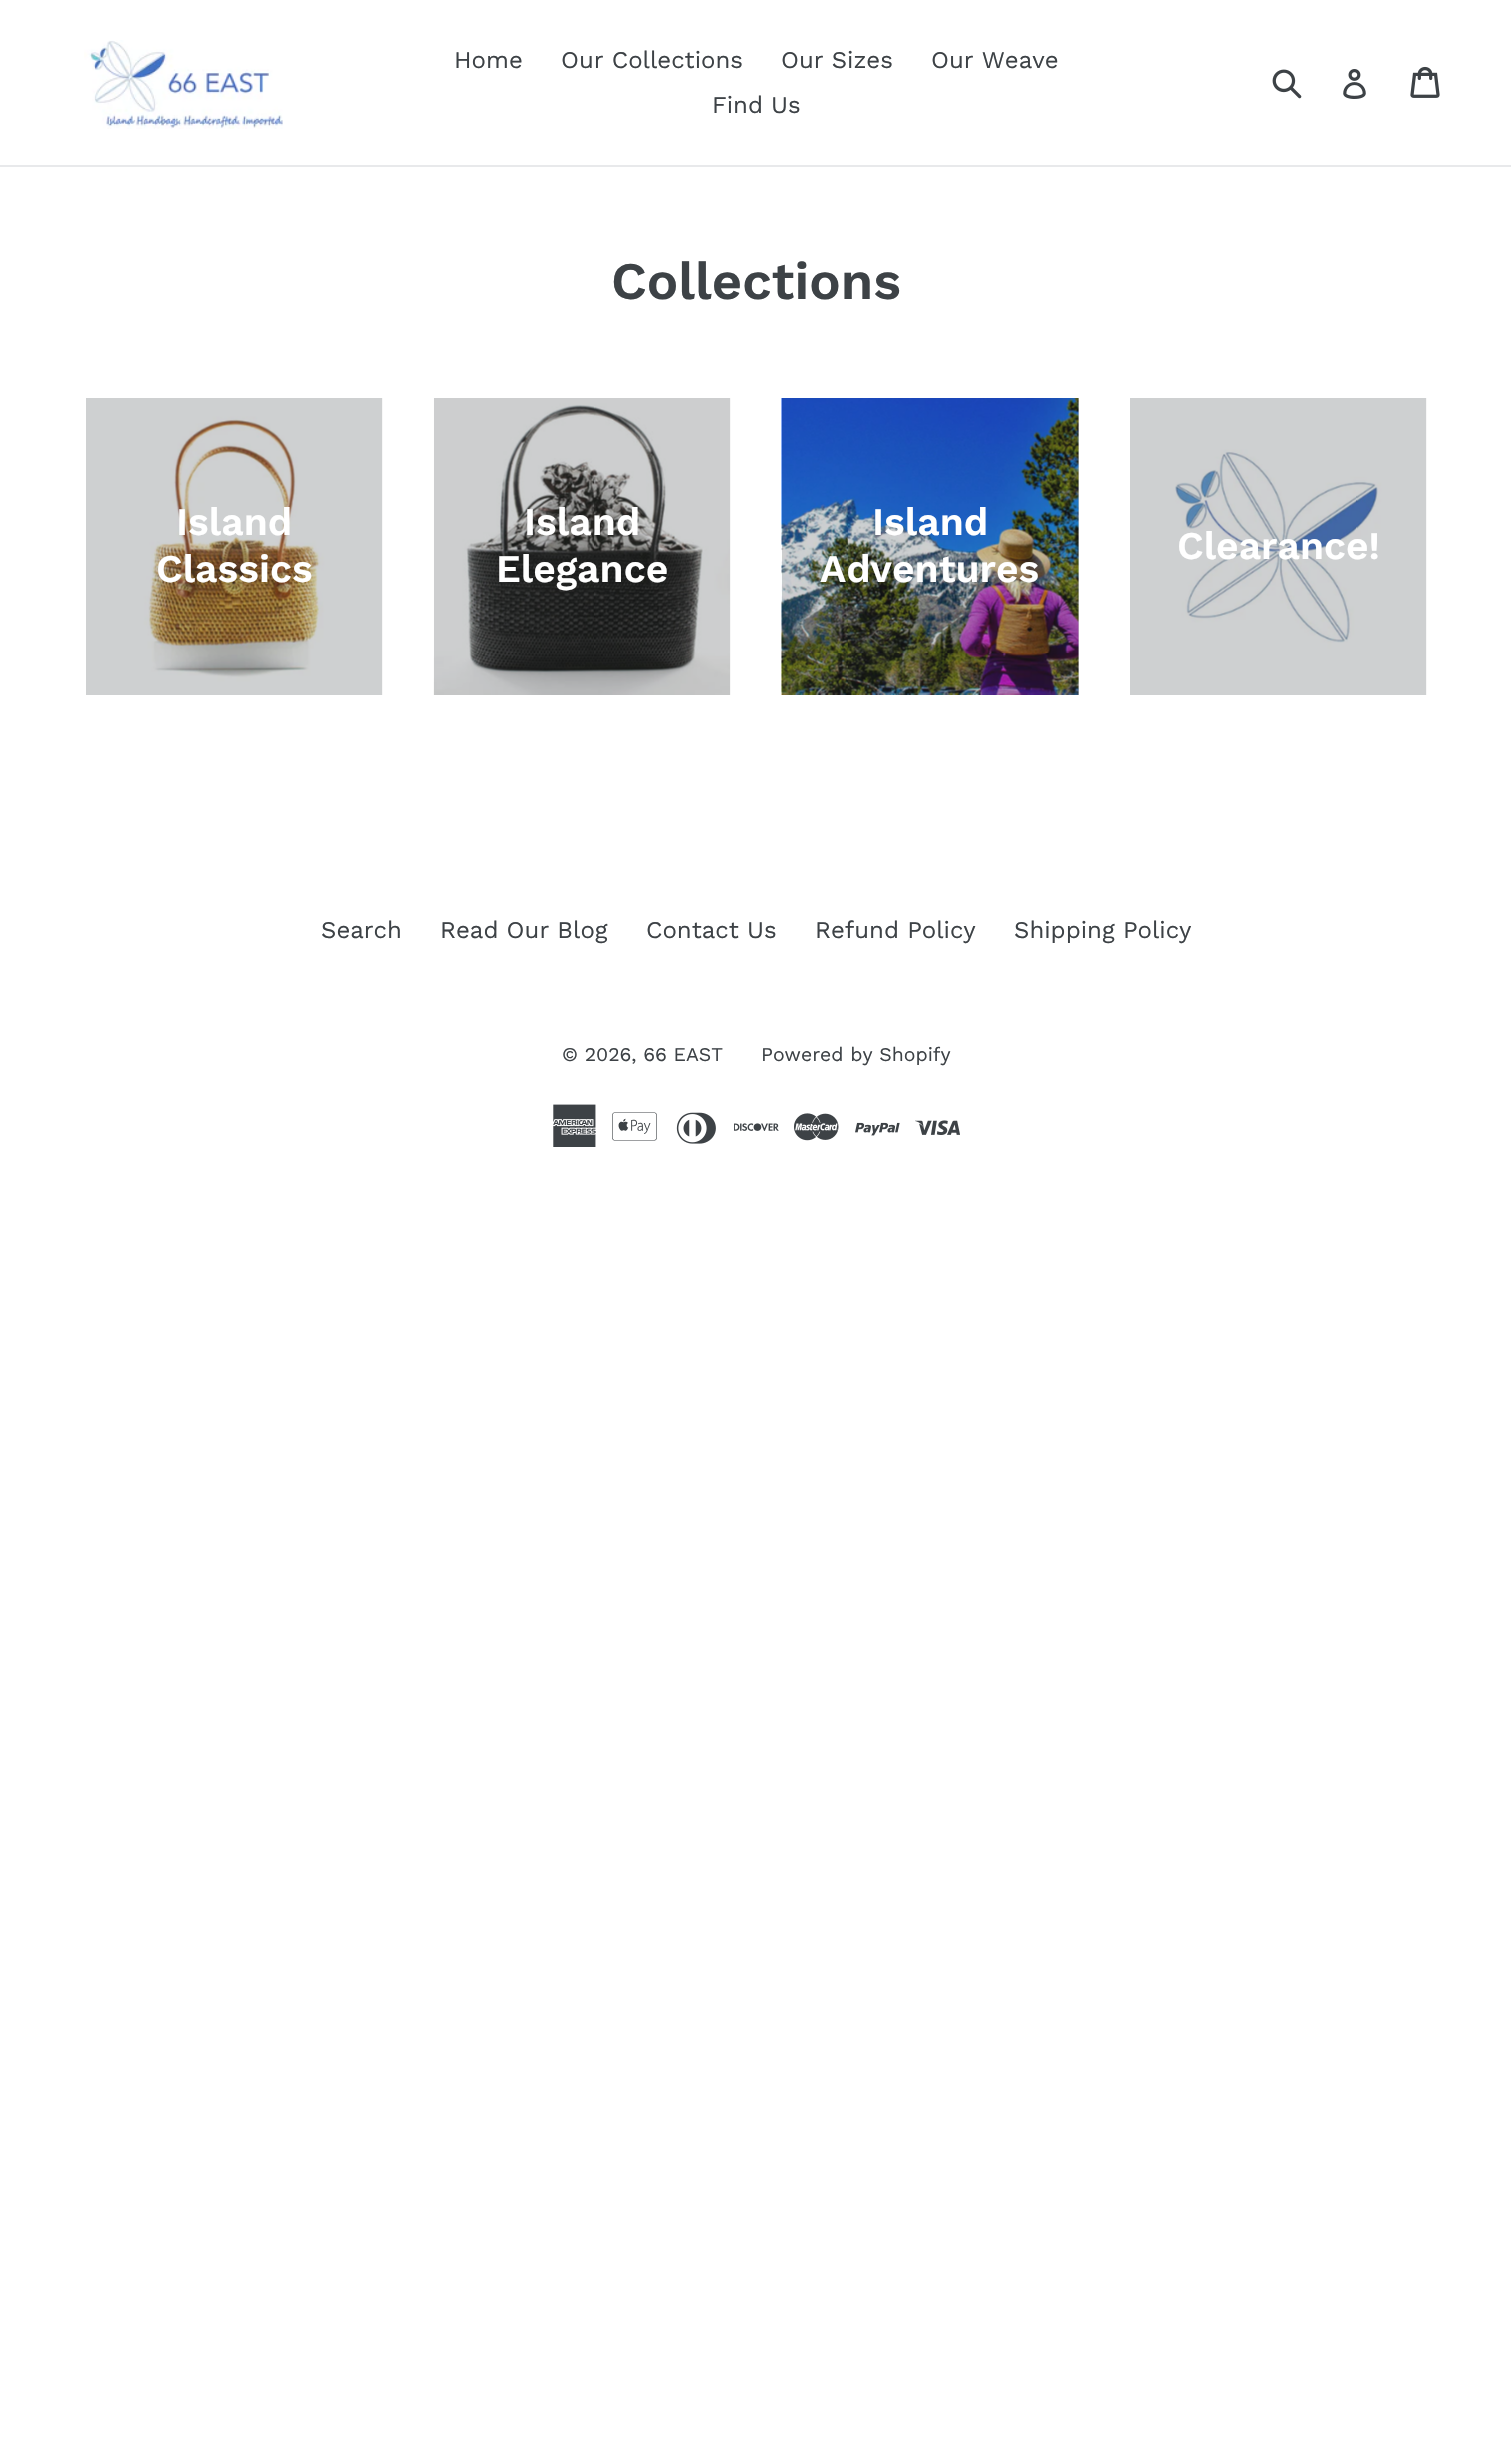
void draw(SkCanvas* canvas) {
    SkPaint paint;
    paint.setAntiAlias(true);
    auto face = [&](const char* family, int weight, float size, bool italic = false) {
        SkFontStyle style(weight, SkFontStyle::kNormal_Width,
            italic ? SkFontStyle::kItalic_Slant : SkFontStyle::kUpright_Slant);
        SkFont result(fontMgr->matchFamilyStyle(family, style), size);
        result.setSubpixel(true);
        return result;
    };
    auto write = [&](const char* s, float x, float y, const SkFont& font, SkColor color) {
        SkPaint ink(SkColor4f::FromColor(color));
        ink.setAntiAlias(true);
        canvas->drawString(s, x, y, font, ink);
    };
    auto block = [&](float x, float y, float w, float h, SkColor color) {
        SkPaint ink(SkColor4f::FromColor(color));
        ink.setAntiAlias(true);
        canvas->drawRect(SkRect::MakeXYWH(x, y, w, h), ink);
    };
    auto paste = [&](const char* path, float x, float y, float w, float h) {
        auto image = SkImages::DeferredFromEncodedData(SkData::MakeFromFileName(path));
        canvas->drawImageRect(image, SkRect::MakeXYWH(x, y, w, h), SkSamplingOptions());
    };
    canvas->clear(SK_ColorWHITE);
    block(0, 165, 1511, 2, SkColorSetRGB(232, 233, 235));
    paste("pic1.png", 84, 40, 199, 89);
    auto kFont1 = face("Work Sans", 400, 24);
    write("Home", 454, 68, kFont1, SkColorSetRGB(61, 66, 70));
    write("Our Collections", 561, 68, kFont1, SkColorSetRGB(61, 66, 70));
    write("Our Sizes", 781, 68, kFont1, SkColorSetRGB(61, 66, 70));
    write("Our Weave", 931, 68, kFont1, SkColorSetRGB(61, 66, 70));
    write("Find Us", 712, 113, kFont1, SkColorSetRGB(61, 66, 70));
    paste("pic2.png", 1272, 69, 30, 30);
    paste("pic3.png", 1343, 69, 23, 30);
    paste("pic4.png", 1410, 66, 30, 32);
    auto kFont2 = face("Work Sans", 600, 52.5f);
    write("Collections", 611, 299, kFont2, SkColorSetRGB(61, 66, 70));
    block(382, 398, 1, 297, SkColorSetRGB(247, 247, 247));
    paste("pic5.png", 86, 398, 296, 297);
    auto kFont3 = face("Work Sans", 600, 39);
    write("Island", 176, 535, kFont3, SK_ColorWHITE);
    write("Classics", 156, 582, kFont3, SK_ColorWHITE);
    block(730, 398, 1, 297, SkColorSetRGB(247, 247, 247));
    paste("pic6.png", 433, 398, 297, 297);
    write("Island", 524, 535, kFont3, SK_ColorWHITE);
    write("Elegance", 496, 582, kFont3, SK_ColorWHITE);
    block(1078, 398, 1, 297, SkColorSetRGB(201, 202, 203));
    paste("pic7.png", 781, 398, 298, 297);
    write("Island", 872, 535, kFont3, SK_ColorWHITE);
    write("Adventures", 820, 582, kFont3, SK_ColorWHITE);
    block(1426, 398, 1, 297, SkColorSetRGB(247, 247, 247));
    paste("pic8.png", 1130, 398, 296, 297);
    write("Clearance!", 1177, 559, kFont3, SK_ColorWHITE);
    write("Search", 321, 938, kFont1, SkColorSetRGB(61, 66, 70));
    write("Read Our Blog", 440, 938, kFont1, SkColorSetRGB(61, 66, 70));
    write("Contact Us", 646, 938, kFont1, SkColorSetRGB(61, 66, 70));
    write("Refund Policy", 815, 938, kFont1, SkColorSetRGB(61, 66, 70));
    write("Shipping Policy", 1014, 938, kFont1, SkColorSetRGB(61, 66, 70));
    auto kFont4 = face("Work Sans", 400, 19.5f);
    write("© 2026, 66 EAST", 562, 1061, kFont4, SkColorSetRGB(61, 66, 70));
    write("Powered by Shopify", 761, 1061, kFont4, SkColorSetRGB(61, 66, 70));
    paste("pic9.png", 553, 1104, 43, 43);
    paste("pic10.png", 612, 1112, 45, 29);
    paste("pic11.png", 676, 1112, 40, 32);
    paste("pic12.png", 734, 1123, 45, 8);
    paste("pic13.png", 794, 1113, 45, 28);
    paste("pic14.png", 855, 1122, 45, 14);
    paste("pic15.png", 915, 1120, 45, 15);
}
